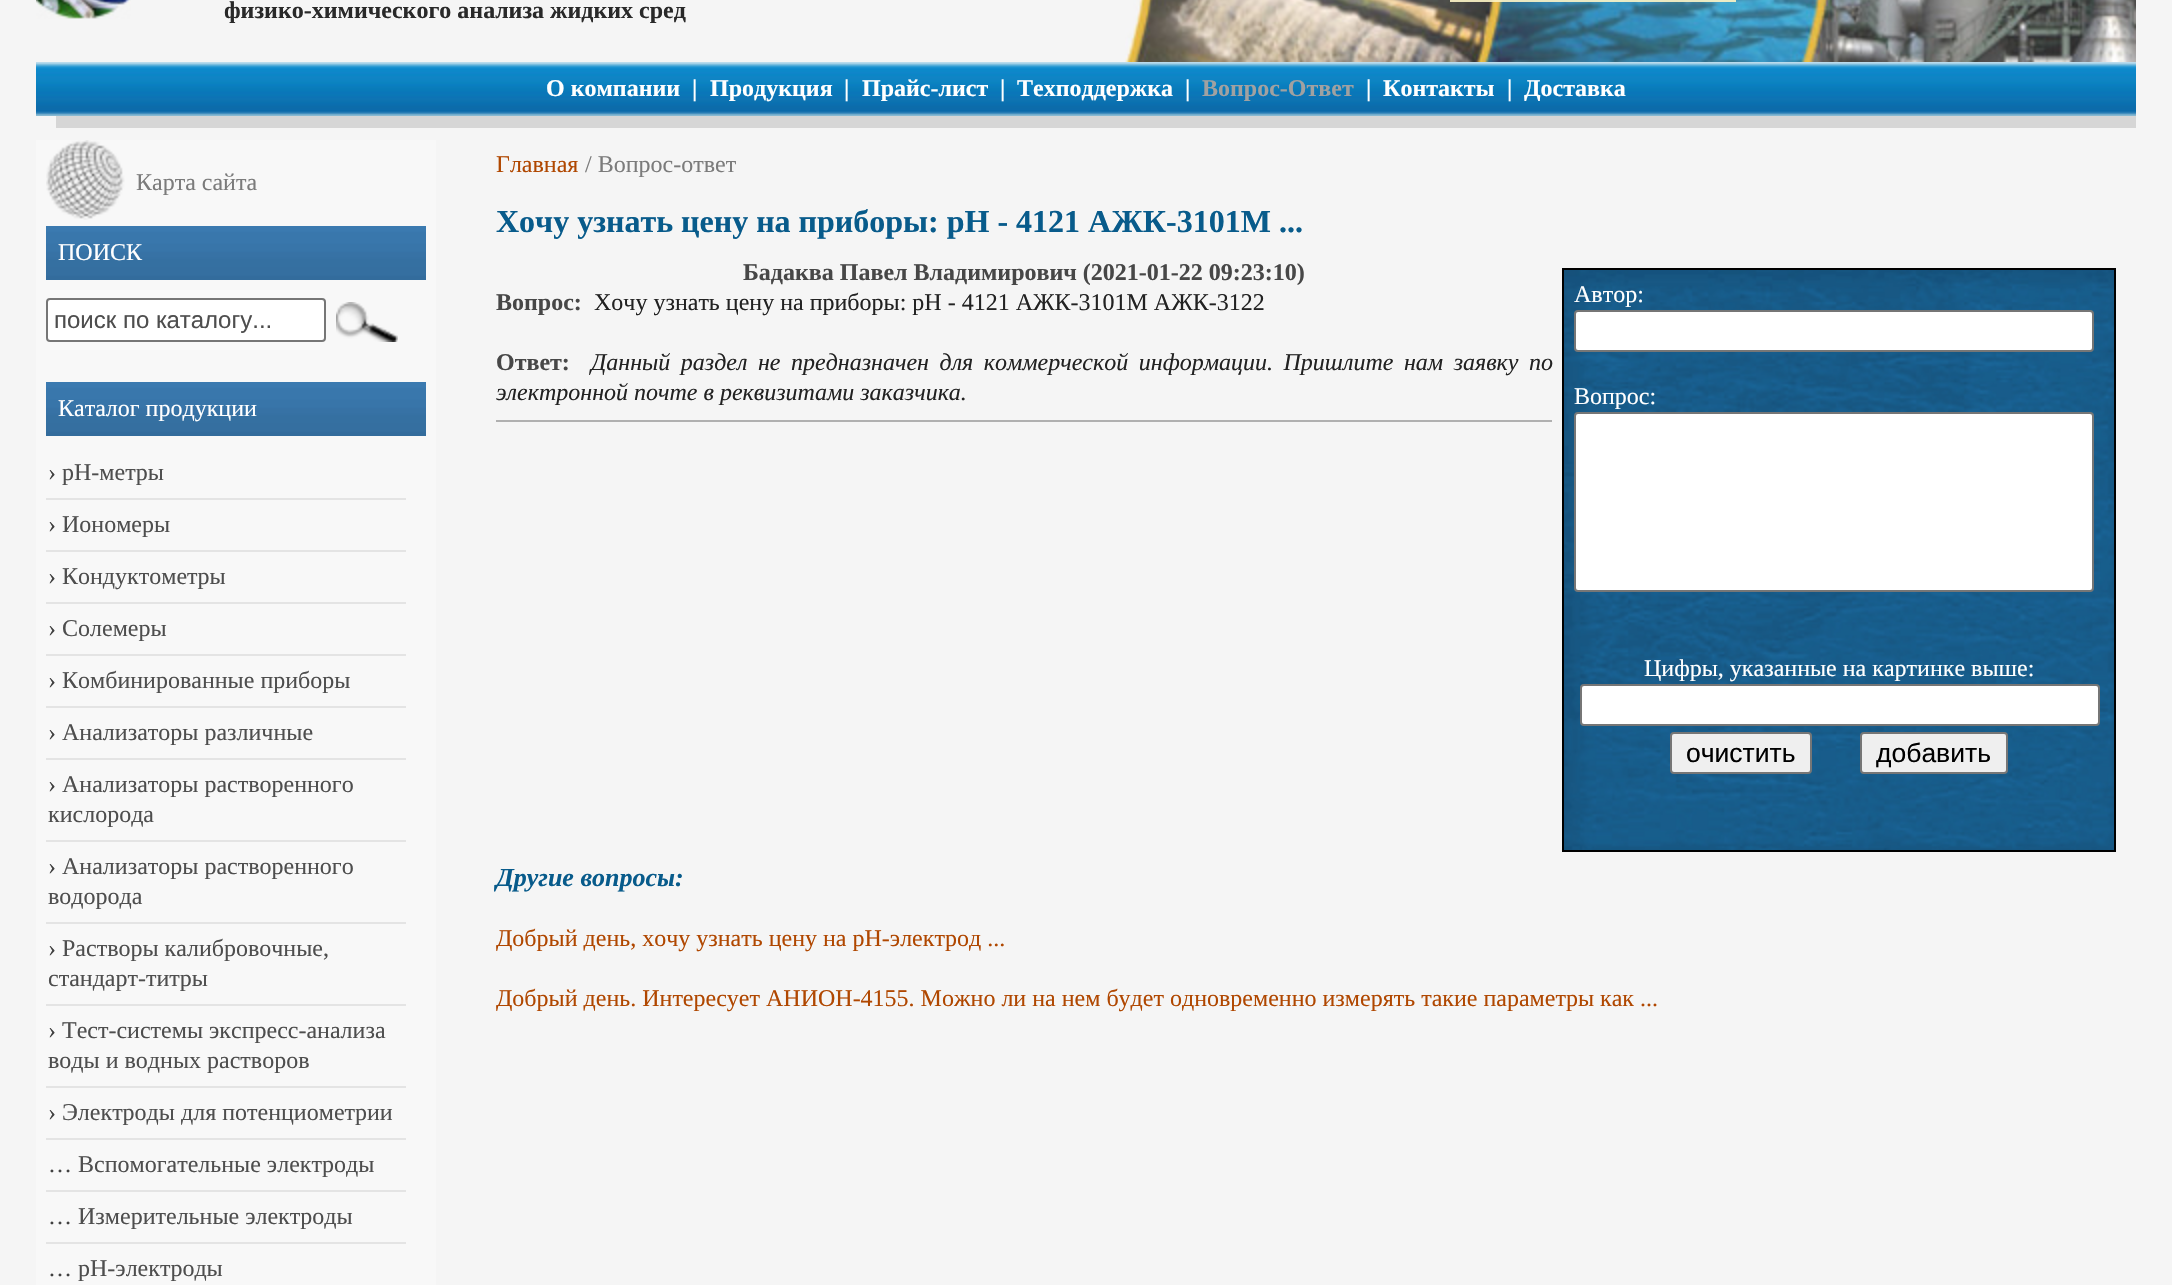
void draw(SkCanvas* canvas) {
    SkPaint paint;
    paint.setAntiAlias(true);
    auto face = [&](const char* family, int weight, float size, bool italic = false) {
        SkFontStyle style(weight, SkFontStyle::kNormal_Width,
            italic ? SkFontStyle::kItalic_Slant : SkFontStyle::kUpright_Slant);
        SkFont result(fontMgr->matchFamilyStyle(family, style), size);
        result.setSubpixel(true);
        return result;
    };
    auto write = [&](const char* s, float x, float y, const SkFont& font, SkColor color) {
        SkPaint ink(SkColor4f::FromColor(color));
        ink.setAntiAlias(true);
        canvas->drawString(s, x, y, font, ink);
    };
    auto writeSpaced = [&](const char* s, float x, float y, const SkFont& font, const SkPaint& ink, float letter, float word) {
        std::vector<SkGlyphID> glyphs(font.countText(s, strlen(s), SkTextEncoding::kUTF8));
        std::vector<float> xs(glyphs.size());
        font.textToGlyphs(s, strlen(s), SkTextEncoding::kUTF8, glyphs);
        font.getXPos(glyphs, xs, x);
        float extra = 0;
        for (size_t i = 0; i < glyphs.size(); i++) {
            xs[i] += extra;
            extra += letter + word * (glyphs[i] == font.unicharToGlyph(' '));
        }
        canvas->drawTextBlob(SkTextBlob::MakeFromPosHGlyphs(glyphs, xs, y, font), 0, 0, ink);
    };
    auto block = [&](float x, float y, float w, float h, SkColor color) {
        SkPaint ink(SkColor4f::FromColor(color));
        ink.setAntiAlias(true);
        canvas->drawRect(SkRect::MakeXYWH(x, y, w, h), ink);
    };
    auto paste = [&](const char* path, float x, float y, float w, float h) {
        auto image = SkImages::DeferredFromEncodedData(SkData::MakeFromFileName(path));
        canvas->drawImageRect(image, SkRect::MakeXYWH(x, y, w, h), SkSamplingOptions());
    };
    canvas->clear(SkColorSetRGB(245, 245, 245));
    paste("pic1.png", 36, 0, 95, 19);
    auto kFont1 = face("Liberation Serif", 700, 24);
    write("физико-химического анализа жидких сред", 224, 18, kFont1, SkColorSetRGB(41, 41, 41));
    paste("pic2.png", 1125, 0, 1011, 62);
    block(1450, 0, 286, 2, SkColorSetARGB(179, 236, 201, 0));
    paint.setStyle(SkPaint::kStroke_Style);
    paint.setStrokeWidth(2);
    paint.setColor(SkColorSetARGB(179, 255, 255, 255));
    canvas->drawRect(SkRect::MakeXYWH(1451, -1, 284, 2), paint);
    paste("pic3.png", 36, 62, 2100, 54);
    write("О компании", 546, 96, kFont1, SK_ColorWHITE);
    write("|", 692, 96, kFont1, SK_ColorWHITE);
    write("Продукция", 710, 96, kFont1, SK_ColorWHITE);
    write("|", 844, 96, kFont1, SK_ColorWHITE);
    write("Прайс-лист", 862, 96, kFont1, SK_ColorWHITE);
    write("|", 1000, 96, kFont1, SK_ColorWHITE);
    write("Техподдержка", 1017, 96, kFont1, SK_ColorWHITE);
    write("|", 1185, 96, kFont1, SK_ColorWHITE);
    write("Вопрос-Ответ", 1202, 96, kFont1, SkColorSetRGB(161, 161, 161));
    write("|", 1366, 96, kFont1, SK_ColorWHITE);
    write("Контакты", 1383, 96, kFont1, SK_ColorWHITE);
    write("|", 1507, 96, kFont1, SK_ColorWHITE);
    write("Доставка", 1524, 96, kFont1, SK_ColorWHITE);
    block(56, 116, 2080, 12, SkColorSetRGB(214, 214, 214));
    block(36, 140, 400, 1145, SkColorSetRGB(248, 248, 248));
    paste("pic4.png", 46, 140, 79, 80);
    auto kFont2 = face("Liberation Serif", 400, 24);
    write("Карта сайта", 136, 190, kFont2, SkColorSetRGB(123, 123, 123));
    paste("pic5.png", 46, 226, 380, 54);
    write("ПОИСК", 58, 260, kFont2, SK_ColorWHITE);
    paint.setStyle(SkPaint::kFill_Style);
    paint.setColor(SK_ColorWHITE);
    canvas->drawRoundRect(SkRect::MakeXYWH(47, 299, 278, 42), 3, 3, paint);
    paint.setStyle(SkPaint::kStroke_Style);
    paint.setColor(SkColorSetRGB(118, 118, 118));
    canvas->drawRoundRect(SkRect::MakeXYWH(47, 299, 278, 42), 3, 3, paint);
    auto kFont3 = face("Liberation Sans", 400, 24);
    write("поиск по каталогу...", 54, 328, kFont3, SkColorSetRGB(78, 78, 78));
    paste("pic6.png", 336, 302, 62, 40);
    paste("pic5.png", 46, 382, 380, 54);
    write("Каталог продукции", 58, 416, kFont2, SK_ColorWHITE);
    block(46, 498, 360, 2, SkColorSetRGB(228, 228, 228));
    write("›", 48, 480, kFont2, SkColorSetRGB(65, 65, 65));
    write("pH-метры", 62, 480, kFont2, SkColorSetRGB(78, 78, 78));
    block(46, 550, 360, 2, SkColorSetRGB(228, 228, 228));
    write("›", 48, 532, kFont2, SkColorSetRGB(65, 65, 65));
    write("Иономеры", 62, 532, kFont2, SkColorSetRGB(78, 78, 78));
    block(46, 602, 360, 2, SkColorSetRGB(228, 228, 228));
    write("›", 48, 584, kFont2, SkColorSetRGB(65, 65, 65));
    write("Кондуктометры", 62, 584, kFont2, SkColorSetRGB(78, 78, 78));
    block(46, 654, 360, 2, SkColorSetRGB(228, 228, 228));
    write("›", 48, 636, kFont2, SkColorSetRGB(65, 65, 65));
    write("Солемеры", 62, 636, kFont2, SkColorSetRGB(78, 78, 78));
    block(46, 706, 360, 2, SkColorSetRGB(228, 228, 228));
    write("›", 48, 688, kFont2, SkColorSetRGB(65, 65, 65));
    write("Комбинированные приборы", 62, 688, kFont2, SkColorSetRGB(78, 78, 78));
    block(46, 758, 360, 2, SkColorSetRGB(228, 228, 228));
    write("›", 48, 740, kFont2, SkColorSetRGB(65, 65, 65));
    write("Анализаторы различные", 62, 740, kFont2, SkColorSetRGB(78, 78, 78));
    block(46, 840, 360, 2, SkColorSetRGB(228, 228, 228));
    write("›", 48, 792, kFont2, SkColorSetRGB(65, 65, 65));
    write("Анализаторы растворенного", 62, 792, kFont2, SkColorSetRGB(78, 78, 78));
    write("кислорода", 48, 822, kFont2, SkColorSetRGB(78, 78, 78));
    block(46, 922, 360, 2, SkColorSetRGB(228, 228, 228));
    write("›", 48, 874, kFont2, SkColorSetRGB(65, 65, 65));
    write("Анализаторы растворенного", 62, 874, kFont2, SkColorSetRGB(78, 78, 78));
    write("водорода", 48, 904, kFont2, SkColorSetRGB(78, 78, 78));
    block(46, 1004, 360, 2, SkColorSetRGB(228, 228, 228));
    write("›", 48, 956, kFont2, SkColorSetRGB(65, 65, 65));
    write("Растворы калибровочные,", 62, 956, kFont2, SkColorSetRGB(78, 78, 78));
    write("стандарт-титры", 48, 986, kFont2, SkColorSetRGB(78, 78, 78));
    block(46, 1086, 360, 2, SkColorSetRGB(228, 228, 228));
    write("›", 48, 1038, kFont2, SkColorSetRGB(65, 65, 65));
    write("Тест-системы экспресс-анализа", 62, 1038, kFont2, SkColorSetRGB(78, 78, 78));
    write("воды и водных растворов", 48, 1068, kFont2, SkColorSetRGB(78, 78, 78));
    block(46, 1138, 360, 2, SkColorSetRGB(228, 228, 228));
    write("›", 48, 1120, kFont2, SkColorSetRGB(65, 65, 65));
    write("Электроды для потенциометрии", 62, 1120, kFont2, SkColorSetRGB(78, 78, 78));
    block(46, 1190, 360, 2, SkColorSetRGB(228, 228, 228));
    write("…", 48, 1172, kFont2, SkColorSetRGB(65, 65, 65));
    write("Вспомогательные электроды", 78, 1172, kFont2, SkColorSetRGB(78, 78, 78));
    block(46, 1242, 360, 2, SkColorSetRGB(228, 228, 228));
    write("…", 48, 1224, kFont2, SkColorSetRGB(65, 65, 65));
    write("Измерительные электроды", 78, 1224, kFont2, SkColorSetRGB(78, 78, 78));
    write("…", 48, 1276, kFont2, SkColorSetRGB(65, 65, 65));
    write("pH-электроды", 78, 1276, kFont2, SkColorSetRGB(78, 78, 78));
    write("Главная", 496, 172, kFont2, SkColorSetRGB(176, 71, 0));
    write("/ Вопрос-ответ", 585, 172, kFont2, SkColorSetRGB(123, 123, 123));
    auto kFont4 = face("Liberation Serif", 700, 32);
    write("Хочу узнать цену на приборы: рН - 4121 АЖК-3101М ...", 496, 232, kFont4, SkColorSetRGB(8, 91, 139));
    write("Бадаква Павел Владимирович (2021-01-22 09:23:10)", 743, 280, kFont1, SkColorSetRGB(71, 71, 71));
    write("Вопрос:", 496, 310, kFont1, SkColorSetRGB(71, 71, 71));
    write("Хочу узнать цену на приборы: рН - 4121 АЖК-3101М АЖК-3122", 594, 310, kFont2, SkColorSetRGB(34, 34, 34));
    paste("pic7.png", 1564, 270, 550, 580);
    paint.setColor(SK_ColorBLACK);
    canvas->drawRect(SkRect::MakeXYWH(1563, 269, 552, 582), paint);
    write("Автор:", 1574, 302, kFont2, SK_ColorWHITE);
    paint.setStyle(SkPaint::kFill_Style);
    paint.setColor(SK_ColorWHITE);
    canvas->drawRoundRect(SkRect::MakeXYWH(1575, 311, 518, 40), 3, 3, paint);
    paint.setStyle(SkPaint::kStroke_Style);
    paint.setColor(SkColorSetRGB(118, 118, 118));
    canvas->drawRoundRect(SkRect::MakeXYWH(1575, 311, 518, 40), 3, 3, paint);
    write("Вопрос:", 1574, 404, kFont2, SK_ColorWHITE);
    paint.setStyle(SkPaint::kFill_Style);
    paint.setColor(SK_ColorWHITE);
    canvas->drawRoundRect(SkRect::MakeXYWH(1575, 413, 518, 178), 3, 3, paint);
    paint.setStyle(SkPaint::kStroke_Style);
    paint.setColor(SkColorSetRGB(118, 118, 118));
    canvas->drawRoundRect(SkRect::MakeXYWH(1575, 413, 518, 178), 3, 3, paint);
    write("Цифры, указанные на картинке выше:", 1644, 676, kFont2, SK_ColorWHITE);
    paint.setStyle(SkPaint::kFill_Style);
    paint.setColor(SK_ColorWHITE);
    canvas->drawRoundRect(SkRect::MakeXYWH(1581, 685, 518, 40), 3, 3, paint);
    paint.setStyle(SkPaint::kStroke_Style);
    paint.setColor(SkColorSetRGB(118, 118, 118));
    canvas->drawRoundRect(SkRect::MakeXYWH(1581, 685, 518, 40), 3, 3, paint);
    paint.setStyle(SkPaint::kFill_Style);
    paint.setColor(SkColorSetRGB(239, 239, 239));
    canvas->drawRoundRect(SkRect::MakeXYWH(1671, 733, 140, 40), 3, 3, paint);
    paint.setStyle(SkPaint::kStroke_Style);
    paint.setColor(SkColorSetRGB(118, 118, 118));
    canvas->drawRoundRect(SkRect::MakeXYWH(1671, 733, 140, 40), 3, 3, paint);
    auto kFont5 = face("Liberation Sans", 400, 26.5f);
    write("очистить", 1686, 762, kFont5, SK_ColorBLACK);
    paint.setStyle(SkPaint::kFill_Style);
    paint.setColor(SkColorSetRGB(239, 239, 239));
    canvas->drawRoundRect(SkRect::MakeXYWH(1861, 733, 146, 40), 3, 3, paint);
    paint.setStyle(SkPaint::kStroke_Style);
    paint.setColor(SkColorSetRGB(118, 118, 118));
    canvas->drawRoundRect(SkRect::MakeXYWH(1861, 733, 146, 40), 3, 3, paint);
    write("добавить", 1876, 762, kFont5, SK_ColorBLACK);
    write("Ответ:", 496, 370, kFont1, SkColorSetRGB(71, 71, 71));
    auto kFont6 = face("Liberation Serif", 400, 24, true);
    paint.setStyle(SkPaint::kFill_Style);
    paint.setColor(SkColorSetRGB(34, 34, 34));
    writeSpaced("Данный раздел не предназначен для коммерческой информации. Пришлите нам заявку по", 591, 370, kFont6, paint, 0, 4.5f);
    write("электронной почте в реквизитами заказчика.", 496, 400, kFont6, SkColorSetRGB(34, 34, 34));
    block(496, 420, 1056, 2, SkColorSetRGB(176, 176, 176));
    auto kFont7 = face("Liberation Serif", 700, 26, true);
    write("Другие вопросы:", 496, 886, kFont7, SkColorSetRGB(8, 91, 139));
    write("Добрый день, хочу узнать цену на pH-электрод ...", 496, 946, kFont2, SkColorSetRGB(176, 71, 0));
    write("Добрый день. Интересует АНИОН-4155. Можно ли на нем будет одновременно измерять такие параметры как ...", 496, 1006, kFont2, SkColorSetRGB(176, 71, 0));
}
